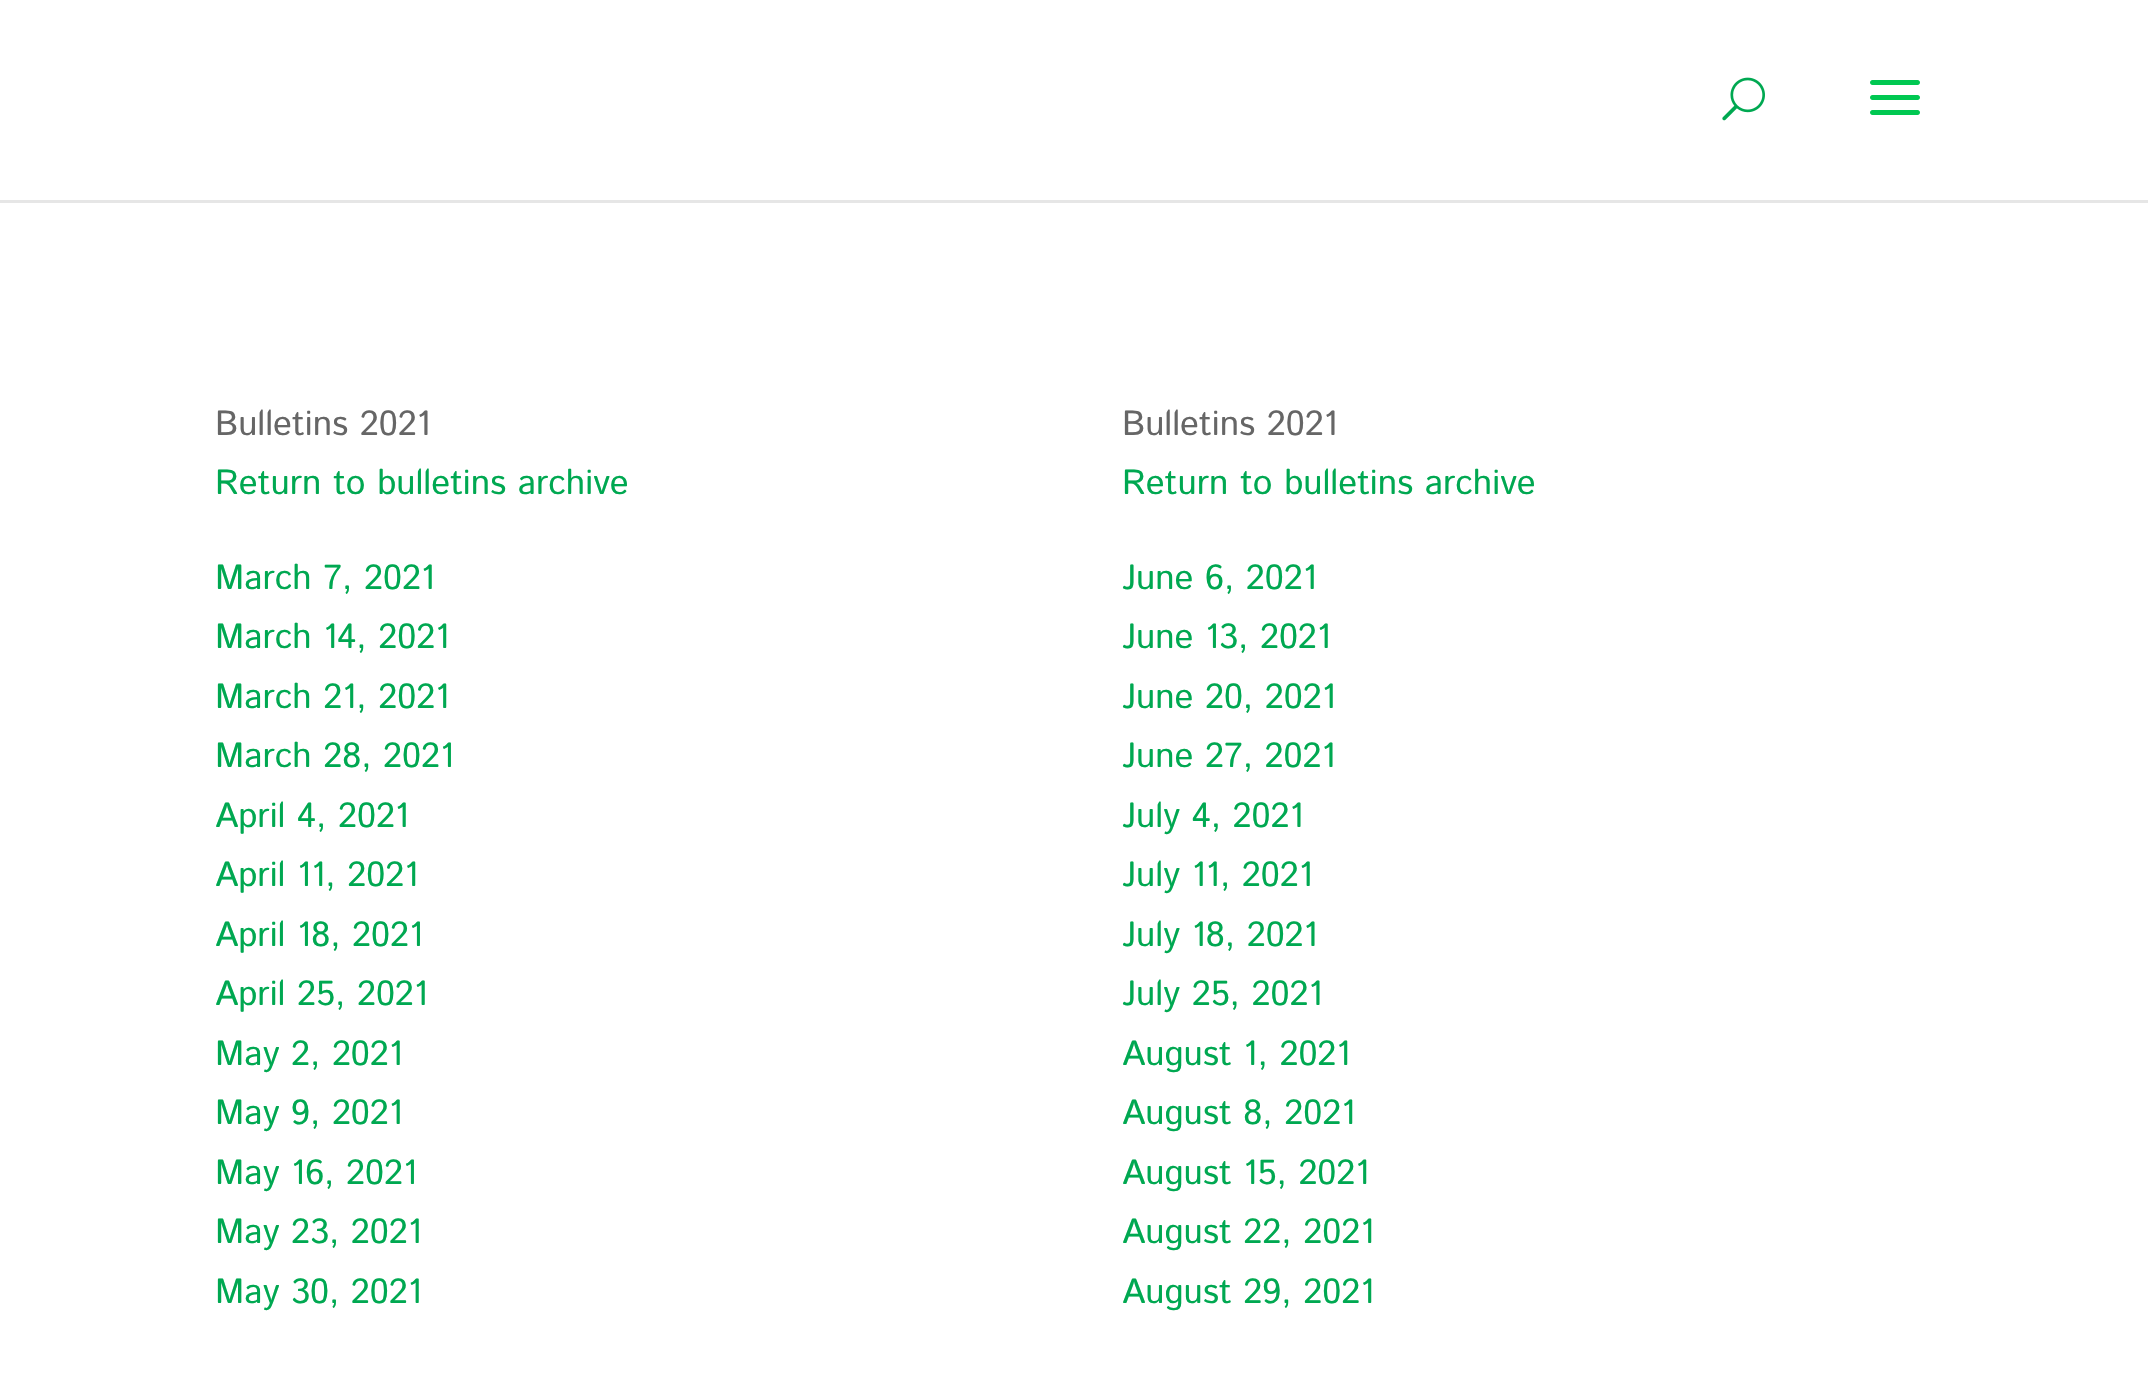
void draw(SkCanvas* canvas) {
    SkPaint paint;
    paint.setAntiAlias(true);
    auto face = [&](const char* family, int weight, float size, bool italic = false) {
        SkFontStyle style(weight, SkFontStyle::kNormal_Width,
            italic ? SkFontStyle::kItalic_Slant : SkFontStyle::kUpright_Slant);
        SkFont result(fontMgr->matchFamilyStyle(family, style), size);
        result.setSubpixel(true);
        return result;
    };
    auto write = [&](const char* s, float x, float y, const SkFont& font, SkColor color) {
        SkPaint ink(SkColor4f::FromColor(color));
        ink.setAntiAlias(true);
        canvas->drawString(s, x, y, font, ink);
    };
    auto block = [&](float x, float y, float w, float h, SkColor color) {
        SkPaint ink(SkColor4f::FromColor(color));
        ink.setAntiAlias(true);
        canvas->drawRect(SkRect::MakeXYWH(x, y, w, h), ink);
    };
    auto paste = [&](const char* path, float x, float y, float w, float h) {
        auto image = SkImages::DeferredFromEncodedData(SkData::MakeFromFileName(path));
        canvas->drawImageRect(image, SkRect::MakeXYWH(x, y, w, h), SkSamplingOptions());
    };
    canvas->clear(SK_ColorWHITE);
    block(0, 200, 2148, 3, SkColorSetRGB(230, 230, 230));
    paste("pic1.png", 1722, 77, 43, 44);
    paste("pic2.png", 1870, 80, 50, 35);
    auto kFont1 = face("Istok Web", 400, 35);
    write("Bulletins 2021", 215, 435, kFont1, SkColorSetRGB(102, 102, 102));
    write("Return to bulletins archive", 215, 494, kFont1, SkColorSetRGB(0, 168, 81));
    write("March 7, 2021", 215, 589, kFont1, SkColorSetRGB(0, 168, 81));
    write("March 14, 2021", 215, 648, kFont1, SkColorSetRGB(0, 168, 81));
    write("March 21, 2021", 215, 708, kFont1, SkColorSetRGB(0, 168, 81));
    write("March 28, 2021", 215, 767, kFont1, SkColorSetRGB(0, 168, 81));
    write("April 4, 2021", 215, 827, kFont1, SkColorSetRGB(0, 168, 81));
    write("April 11, 2021", 215, 886, kFont1, SkColorSetRGB(0, 168, 81));
    write("April 18, 2021", 215, 946, kFont1, SkColorSetRGB(0, 168, 81));
    write("April 25, 2021", 215, 1005, kFont1, SkColorSetRGB(0, 168, 81));
    write("May 2, 2021", 215, 1065, kFont1, SkColorSetRGB(0, 168, 81));
    write("May 9, 2021", 215, 1124, kFont1, SkColorSetRGB(0, 168, 81));
    write("May 16, 2021", 215, 1184, kFont1, SkColorSetRGB(0, 168, 81));
    write("May 23, 2021", 215, 1243, kFont1, SkColorSetRGB(0, 168, 81));
    write("May 30, 2021", 215, 1303, kFont1, SkColorSetRGB(0, 168, 81));
    write("Bulletins 2021", 1122, 435, kFont1, SkColorSetRGB(102, 102, 102));
    write("Return to bulletins archive", 1122, 494, kFont1, SkColorSetRGB(0, 168, 81));
    write("June 6, 2021", 1122, 589, kFont1, SkColorSetRGB(0, 168, 81));
    write("June 13, 2021", 1122, 648, kFont1, SkColorSetRGB(0, 168, 81));
    write("June 20, 2021", 1122, 708, kFont1, SkColorSetRGB(0, 168, 81));
    write("June 27, 2021", 1122, 767, kFont1, SkColorSetRGB(0, 168, 81));
    write("July 4, 2021", 1122, 827, kFont1, SkColorSetRGB(0, 168, 81));
    write("July 11, 2021", 1122, 886, kFont1, SkColorSetRGB(0, 168, 81));
    write("July 18, 2021", 1122, 946, kFont1, SkColorSetRGB(0, 168, 81));
    write("July 25, 2021", 1122, 1005, kFont1, SkColorSetRGB(0, 168, 81));
    write("August 1, 2021", 1122, 1065, kFont1, SkColorSetRGB(0, 168, 81));
    write("August 8, 2021", 1122, 1124, kFont1, SkColorSetRGB(0, 168, 81));
    write("August 15, 2021", 1122, 1184, kFont1, SkColorSetRGB(0, 168, 81));
    write("August 22, 2021", 1122, 1243, kFont1, SkColorSetRGB(0, 168, 81));
    write("August 29, 2021", 1122, 1303, kFont1, SkColorSetRGB(0, 168, 81));
}
